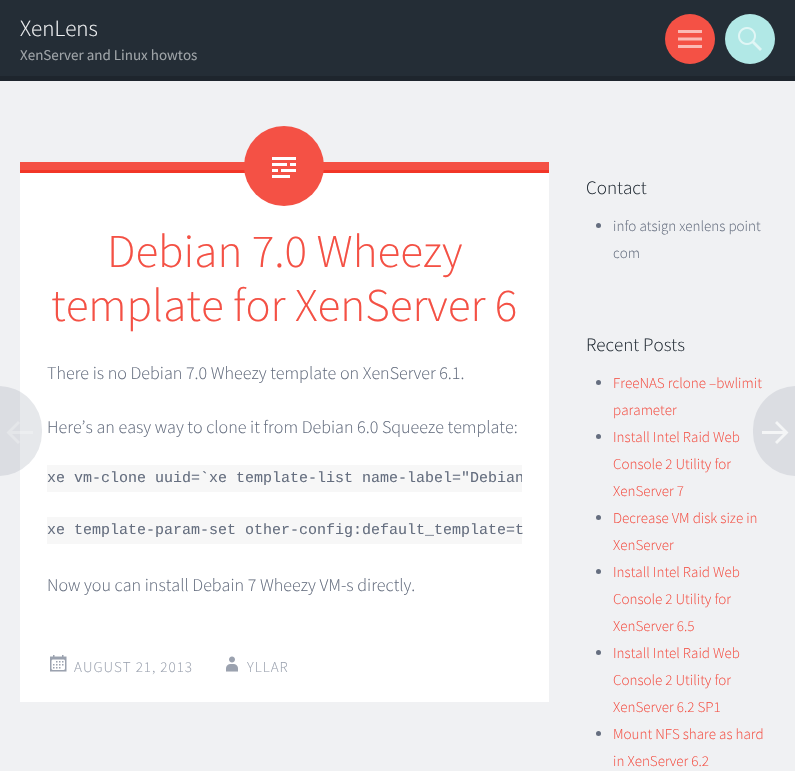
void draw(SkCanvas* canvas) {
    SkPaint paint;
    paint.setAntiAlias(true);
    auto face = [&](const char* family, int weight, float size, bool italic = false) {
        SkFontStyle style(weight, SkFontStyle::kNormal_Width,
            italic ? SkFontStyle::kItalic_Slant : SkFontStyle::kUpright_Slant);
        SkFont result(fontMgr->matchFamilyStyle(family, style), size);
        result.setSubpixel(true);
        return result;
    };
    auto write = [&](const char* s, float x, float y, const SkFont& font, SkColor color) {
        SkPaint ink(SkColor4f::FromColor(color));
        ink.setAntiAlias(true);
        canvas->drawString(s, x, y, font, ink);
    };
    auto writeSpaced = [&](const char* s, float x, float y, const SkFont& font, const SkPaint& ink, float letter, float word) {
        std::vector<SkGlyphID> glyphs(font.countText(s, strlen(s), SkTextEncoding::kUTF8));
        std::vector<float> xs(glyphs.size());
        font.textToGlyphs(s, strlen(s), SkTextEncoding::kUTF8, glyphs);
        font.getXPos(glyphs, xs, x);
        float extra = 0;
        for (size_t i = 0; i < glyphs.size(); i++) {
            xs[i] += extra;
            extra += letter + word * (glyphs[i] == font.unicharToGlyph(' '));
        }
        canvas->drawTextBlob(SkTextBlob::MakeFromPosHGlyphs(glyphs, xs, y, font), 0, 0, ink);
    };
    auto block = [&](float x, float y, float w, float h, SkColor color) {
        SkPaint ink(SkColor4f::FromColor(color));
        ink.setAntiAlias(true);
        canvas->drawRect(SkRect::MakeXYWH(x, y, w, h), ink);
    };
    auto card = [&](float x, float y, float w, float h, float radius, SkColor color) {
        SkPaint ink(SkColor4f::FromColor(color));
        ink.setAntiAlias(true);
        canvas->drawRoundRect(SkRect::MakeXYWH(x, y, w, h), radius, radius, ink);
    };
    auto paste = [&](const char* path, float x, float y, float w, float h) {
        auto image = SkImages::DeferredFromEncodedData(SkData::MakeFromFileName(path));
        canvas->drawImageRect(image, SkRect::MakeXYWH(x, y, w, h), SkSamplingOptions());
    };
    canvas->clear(SkColorSetRGB(240, 241, 243));
    block(0, 0, 795, 76, SkColorSetRGB(36, 45, 54));
    block(0, 76, 795, 5, SkColorSetRGB(30, 37, 45));
    auto kFont1 = face("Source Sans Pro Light", 300, 23);
    write("XenLens", 20, 36, kFont1, SkColorSetRGB(240, 241, 243));
    auto kFont2 = face("Source Sans Pro", 400, 15);
    write("XenServer and Linux howtos", 20, 60, kFont2, SkColorSetRGB(158, 163, 167));
    paint.setColor(SkColorSetRGB(244, 81, 69));
    canvas->drawCircle(690, 39, 25, paint);
    paste("pic1.png", 678, 30, 24, 18);
    paint.setColor(SkColorSetRGB(177, 232, 230));
    canvas->drawCircle(750, 39, 25, paint);
    paste("pic2.png", 738, 27, 24, 24);
    block(20, 173, 529, 529, SK_ColorWHITE);
    block(20, 162, 529, 8, SkColorSetRGB(244, 81, 69));
    block(20, 170, 529, 3, SkColorSetRGB(242, 54, 40));
    paint.setColor(SkColorSetRGB(244, 81, 69));
    canvas->drawCircle(284, 166, 40, paint);
    paste("pic3.png", 272, 157, 24, 21);
    auto kFont3 = face("Source Sans Pro Light", 300, 47);
    write("Debian 7.0 Wheezy", 107, 267, kFont3, SkColorSetRGB(244, 81, 69));
    write("template for XenServer 6", 51, 321, kFont3, SkColorSetRGB(244, 81, 69));
    auto kFont4 = face("Source Sans Pro Light", 300, 18);
    write("There is no Debian 7.0 Wheezy template on XenServer 6.1.", 47, 379, kFont4, SkColorSetRGB(101, 110, 127));
    write("Here’s an easy way to clone it from Debian 6.0 Squeeze template:", 47, 433, kFont4, SkColorSetRGB(101, 110, 127));
    block(47, 465, 475, 27, SkColorSetRGB(247, 247, 247));
    canvas->save();
    canvas->clipRect(SkRect::MakeXYWH(47, 465, 475, 27));
    auto kFont5 = face("Liberation Mono", 400, 15);
    write("xe vm-clone uuid=`xe template-list name-label=\"Debian", 47, 482, kFont5, SkColorSetRGB(101, 110, 127));
    canvas->restore();
    block(47, 517, 475, 27, SkColorSetRGB(247, 247, 247));
    write("xe template-param-set other-config:default_template=t", 47, 534, kFont5, SkColorSetRGB(101, 110, 127));
    write("Now you can install Debain 7 Wheezy VM-s directly.", 47, 591, kFont4, SkColorSetRGB(101, 110, 127));
    paste("pic4.png", 50, 655, 17, 17);
    auto kFont6 = face("Source Sans Pro Light", 300, 15);
    paint.setColor(SkColorSetRGB(155, 162, 175));
    writeSpaced("AUGUST 21, 2013", 74, 672, kFont6, paint, 1, 0);
    paste("pic5.png", 226, 656, 12, 16);
    writeSpaced("YLLAR", 247, 672, kFont6, paint, 1, 0);
    card(-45, 386, 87, 90, 45, SkColorSetARGB(64, 155, 162, 175));
    paint.setColor(SkColorSetARGB(64, 255, 255, 255));
    canvas->drawPath(SkPathBuilder().moveTo(18, 421).lineTo(20, 423).lineTo(12, 431).lineTo(33, 431).lineTo(33, 434).lineTo(12, 434).lineTo(20, 442).lineTo(18, 444).lineTo(6.5f, 432.5f).close().detach(), paint);
    write("FreeNAS rclone –bwlimit", 613, 388, kFont6, SkColorSetRGB(244, 81, 69));
    card(753, 386, 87, 90, 45, SkColorSetRGB(219, 221, 226));
    paint.setColor(SkColorSetRGB(244, 245, 246));
    canvas->drawPath(SkPathBuilder().moveTo(777, 421).lineTo(788.5f, 432.5f).lineTo(777, 444).lineTo(775, 442).lineTo(783, 434).lineTo(762, 434).lineTo(762, 431).lineTo(783, 431).lineTo(775, 423).close().detach(), paint);
    auto kFont7 = face("Source Sans Pro Light", 300, 19);
    write("Contact", 586, 194, kFont7, SkColorSetRGB(36, 45, 54));
    paint.setColor(SkColorSetRGB(101, 110, 127));
    canvas->drawCircle(598.5f, 225.5f, 2.5f, paint);
    write("info atsign xenlens point", 613, 231, kFont6, SkColorSetRGB(101, 110, 127));
    write("com", 613, 258, kFont6, SkColorSetRGB(101, 110, 127));
    write("Recent Posts", 586, 351, kFont7, SkColorSetRGB(36, 45, 54));
    canvas->drawCircle(598.5f, 382.5f, 2.5f, paint);
    write("parameter", 613, 415, kFont6, SkColorSetRGB(244, 81, 69));
    canvas->drawCircle(598.5f, 436.5f, 2.5f, paint);
    write("Install Intel Raid Web", 613, 442, kFont6, SkColorSetRGB(244, 81, 69));
    write("Console 2 Utility for", 613, 469, kFont6, SkColorSetRGB(244, 81, 69));
    write("XenServer 7", 613, 496, kFont6, SkColorSetRGB(244, 81, 69));
    canvas->drawCircle(598.5f, 517.5f, 2.5f, paint);
    write("Decrease VM disk size in", 613, 523, kFont6, SkColorSetRGB(244, 81, 69));
    write("XenServer", 613, 550, kFont6, SkColorSetRGB(244, 81, 69));
    canvas->drawCircle(598.5f, 571.5f, 2.5f, paint);
    write("Install Intel Raid Web", 613, 577, kFont6, SkColorSetRGB(244, 81, 69));
    write("Console 2 Utility for", 613, 604, kFont6, SkColorSetRGB(244, 81, 69));
    write("XenServer 6.5", 613, 631, kFont6, SkColorSetRGB(244, 81, 69));
    canvas->drawCircle(598.5f, 652.5f, 2.5f, paint);
    write("Install Intel Raid Web", 613, 658, kFont6, SkColorSetRGB(244, 81, 69));
    write("Console 2 Utility for", 613, 685, kFont6, SkColorSetRGB(244, 81, 69));
    write("XenServer 6.2 SP1", 613, 712, kFont6, SkColorSetRGB(244, 81, 69));
    canvas->drawCircle(598.5f, 733.5f, 2.5f, paint);
    write("Mount NFS share as hard", 613, 739, kFont6, SkColorSetRGB(244, 81, 69));
    write("in XenServer 6.2", 613, 766, kFont6, SkColorSetRGB(244, 81, 69));
}
